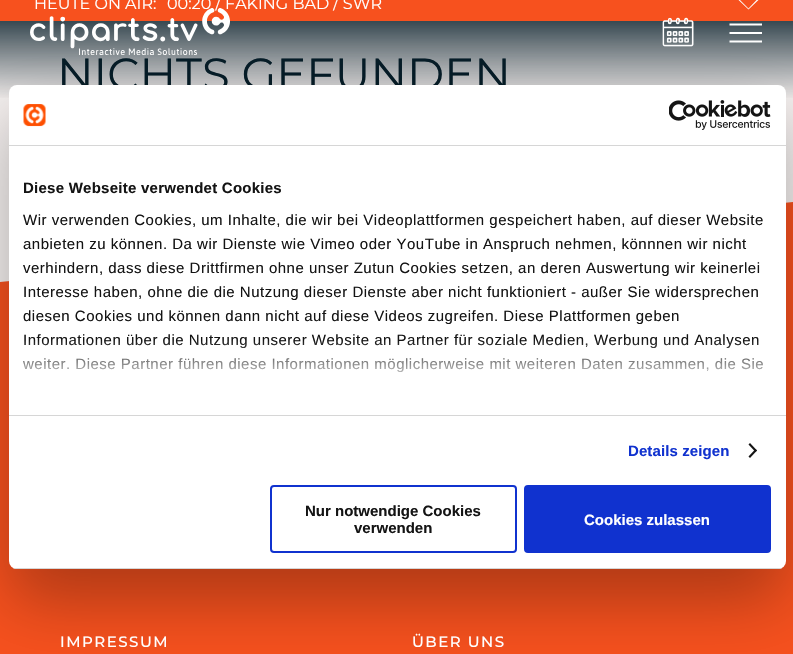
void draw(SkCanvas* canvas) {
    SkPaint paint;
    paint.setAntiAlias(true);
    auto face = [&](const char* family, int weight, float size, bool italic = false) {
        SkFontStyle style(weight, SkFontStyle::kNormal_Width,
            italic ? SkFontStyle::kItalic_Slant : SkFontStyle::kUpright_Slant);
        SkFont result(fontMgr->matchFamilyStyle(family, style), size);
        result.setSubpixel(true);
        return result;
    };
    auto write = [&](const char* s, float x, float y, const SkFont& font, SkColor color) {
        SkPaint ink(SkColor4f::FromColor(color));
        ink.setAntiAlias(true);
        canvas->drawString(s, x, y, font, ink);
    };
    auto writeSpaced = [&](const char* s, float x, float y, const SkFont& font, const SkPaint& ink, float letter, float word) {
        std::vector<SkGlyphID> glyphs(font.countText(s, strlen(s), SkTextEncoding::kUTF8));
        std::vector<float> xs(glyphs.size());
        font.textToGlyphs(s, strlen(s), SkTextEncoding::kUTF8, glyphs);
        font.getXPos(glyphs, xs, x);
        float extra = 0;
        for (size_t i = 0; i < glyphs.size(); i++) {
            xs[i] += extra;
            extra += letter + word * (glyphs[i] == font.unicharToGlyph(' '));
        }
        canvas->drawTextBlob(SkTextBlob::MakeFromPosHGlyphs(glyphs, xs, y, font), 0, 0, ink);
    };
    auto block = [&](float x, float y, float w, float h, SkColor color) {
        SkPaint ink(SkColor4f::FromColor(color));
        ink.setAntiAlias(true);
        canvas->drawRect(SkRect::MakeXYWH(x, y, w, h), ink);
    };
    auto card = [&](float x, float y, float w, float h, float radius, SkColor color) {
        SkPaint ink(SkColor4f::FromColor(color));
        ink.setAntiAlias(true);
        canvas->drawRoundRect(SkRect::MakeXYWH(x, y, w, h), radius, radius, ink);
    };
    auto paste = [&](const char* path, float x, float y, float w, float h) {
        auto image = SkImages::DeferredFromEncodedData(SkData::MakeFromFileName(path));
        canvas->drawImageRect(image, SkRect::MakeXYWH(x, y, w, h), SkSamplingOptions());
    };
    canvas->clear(SkColorSetRGB(245, 240, 239));
    block(0, 0, 793, 21, SkColorSetRGB(247, 81, 30));
    auto kFont1 = face("Montserrat", 100, 16);
    write("HEUTE ON AIR:", 34, 9, kFont1, SK_ColorWHITE);
    write("00:20 / FAKING BAD / SWR", 167, 9, kFont1, SK_ColorWHITE);
    paint.setColor(SK_ColorWHITE);
    canvas->drawPath(SkPathBuilder().moveTo(758, -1.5f).lineTo(748.5f, 8.5f).lineTo(738.5f, -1.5f).lineTo(738, -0.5f).lineTo(748.5f, 9.5f).lineTo(759, -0.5f).close().detach(), paint);
    auto kFont2 = face("Montserrat", 100, 45);
    write("NICHTS GEFUNDEN", 57, 90, kFont2, SkColorSetRGB(5, 28, 39));
    {
        const SkColor colors[] = {SkColorSetRGB(5, 28, 39), SkColorSetARGB(0, 5, 28, 39)};
        const float stops[] = {0, 1};
        const SkPoint ends[] = {{397, 0}, {397, 100}};
        paint.setShader(SkGradientShader::MakeLinear(ends, colors, stops, 2, SkTileMode::kClamp));
        paint.setAlpha(255);
    }
    canvas->drawRect(SkRect::MakeXYWH(0, 21, 793, 77), paint);
    paste("pic1.png", 30, 8, 200, 47);
    paste("pic2.png", 662, 17, 32, 30);
    paint.setShader(nullptr);
    paint.setColor(SK_ColorWHITE);
    canvas->drawPath(SkPathBuilder().moveTo(729.5f, 23.5f).lineTo(762, 23.5f).lineTo(762, 25.5f).lineTo(729.5f, 25.5f).close().moveTo(729.5f, 32).lineTo(762, 32).lineTo(762, 34).lineTo(729.5f, 34).close().moveTo(729.5f, 40.5f).lineTo(762, 40.5f).lineTo(762, 42.5f).lineTo(729.5f, 42.5f).close().detach(), paint);
    paint.setColor(SkColorSetRGB(247, 81, 30));
    canvas->drawPath(SkPathBuilder().moveTo(0, 282).lineTo(0, 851).lineTo(793, 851).lineTo(793, 202).close().detach(), paint);
    paint.setColor(SkColorSetARGB(77, 0, 0, 0));
    paint.setMaskFilter(SkMaskFilter::MakeBlur(kNormal_SkBlurStyle, 34));
    canvas->drawRoundRect(SkRect::MakeXYWH(9, 117, 777, 484), 8, 8, paint);
    paint.setMaskFilter(nullptr);
    card(9, 85, 777, 484, 8, SK_ColorWHITE);
    block(9, 145, 777, 1, SkColorSetRGB(214, 214, 214));
    paste("pic3.png", 23, 104, 23, 23);
    paste("pic4.png", 669, 100, 102, 30);
    block(9, 415, 777, 1, SkColorSetRGB(214, 214, 214));
    auto kFont3 = face("Liberation Sans", 700, 15);
    paint.setColor(SkColorSetRGB(20, 20, 20));
    writeSpaced("Diese Webseite verwendet Cookies", 23, 193, kFont3, paint, 0.25f, 0);
    auto kFont4 = face("Liberation Sans", 400, 15);
    writeSpaced("Wir verwenden Cookies, um Inhalte, die wir bei Videoplattformen gespeichert haben, auf dieser Website", 23, 225, kFont4, paint, 0.5f, 0);
    writeSpaced("anbieten zu können. Da wir Dienste wie Vimeo oder YouTube in Anspruch nehmen, könnnen wir nicht", 23, 249, kFont4, paint, 0.5f, 0);
    writeSpaced("verhindern, dass diese Drittfirmen ohne unser Zutun Cookies setzen, an deren Auswertung wir keinerlei", 23, 273, kFont4, paint, 0.5f, 0);
    writeSpaced("Interesse haben, ohne die die Nutzung dieser Dienste aber nicht funktioniert - außer Sie widersprechen", 23, 297, kFont4, paint, 0.5f, 0);
    writeSpaced("diesen Cookies und können dann nicht auf diese Videos zugreifen. Diese Plattformen geben", 23, 321, kFont4, paint, 0.5f, 0);
    writeSpaced("Informationen über die Nutzung unserer Website an Partner für soziale Medien, Werbung und Analysen", 23, 345, kFont4, paint, 0.5f, 0);
    writeSpaced("weiter. Diese Partner führen diese Informationen möglicherweise mit weiteren Daten zusammen, die Sie", 23, 369, kFont4, paint, 0.5f, 0);
    {
        const SkColor colors[] = {SK_ColorWHITE, SkColorSetARGB(204, 255, 255, 255), SkColorSetARGB(0, 255, 255, 255)};
        const float stops[] = {0, 0.5f, 1};
        const SkPoint ends[] = {{391, 415}, {391, 340}};
        paint.setShader(SkGradientShader::MakeLinear(ends, colors, stops, 3, SkTileMode::kClamp));
        paint.setAlpha(255);
    }
    canvas->drawRect(SkRect::MakeXYWH(23, 341, 740, 32), paint);
    paint.setShader(nullptr);
    paint.setColor(SkColorSetRGB(16, 50, 207));
    writeSpaced("Details zeigen", 628, 456, kFont3, paint, 0.1f, 0);
    paint.setColor(SkColorSetRGB(20, 20, 20));
    canvas->drawPath(SkPathBuilder().moveTo(750, 443).lineTo(757, 450.5f).lineTo(755.5f, 452).lineTo(748.5f, 444.5f).close().detach(), paint);
    canvas->drawPath(SkPathBuilder().moveTo(755.5f, 449).lineTo(757, 450.5f).lineTo(750, 458).lineTo(748.5f, 456.5f).close().detach(), paint);
    canvas->save();
    canvas->clipPath(SkPathBuilder().moveTo(17, 85).lineTo(778, 85).cubicTo(782.5f, 85, 786, 88.5f, 786, 93).lineTo(786, 561).cubicTo(786, 565.5f, 782.5f, 569, 778, 569).lineTo(17, 569).cubicTo(12.5f, 569, 9, 565.5f, 9, 561).lineTo(9, 93).cubicTo(9, 88.5f, 12.5f, 85, 17, 85).close().detach(), true);
    block(9, 568, 777, 1, SkColorSetRGB(214, 214, 214));
    canvas->restore();
    paint.setStyle(SkPaint::kStroke_Style);
    paint.setStrokeWidth(2);
    paint.setColor(SkColorSetRGB(16, 50, 207));
    canvas->drawRoundRect(SkRect::MakeXYWH(271, 486, 245, 66), 3, 3, paint);
    write("Nur notwendige Cookies", 305, 516, kFont3, SkColorSetRGB(20, 20, 20));
    write("verwenden", 354, 533, kFont3, SkColorSetRGB(20, 20, 20));
    paint.setStyle(SkPaint::kFill_Style);
    canvas->drawRoundRect(SkRect::MakeXYWH(525, 486, 245, 66), 3, 3, paint);
    paint.setStyle(SkPaint::kStroke_Style);
    canvas->drawRoundRect(SkRect::MakeXYWH(525, 486, 245, 66), 3, 3, paint);
    write("Cookies zulassen", 584, 525, kFont3, SK_ColorWHITE);
    auto kFont5 = face("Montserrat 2", 100, 15);
    paint.setStyle(SkPaint::kFill_Style);
    paint.setColor(SK_ColorWHITE);
    writeSpaced("IMPRESSUM", 60, 647, kFont5, paint, 1.5f, 0);
    writeSpaced("ÜBER UNS", 412, 647, kFont5, paint, 1.5f, 0);
}
